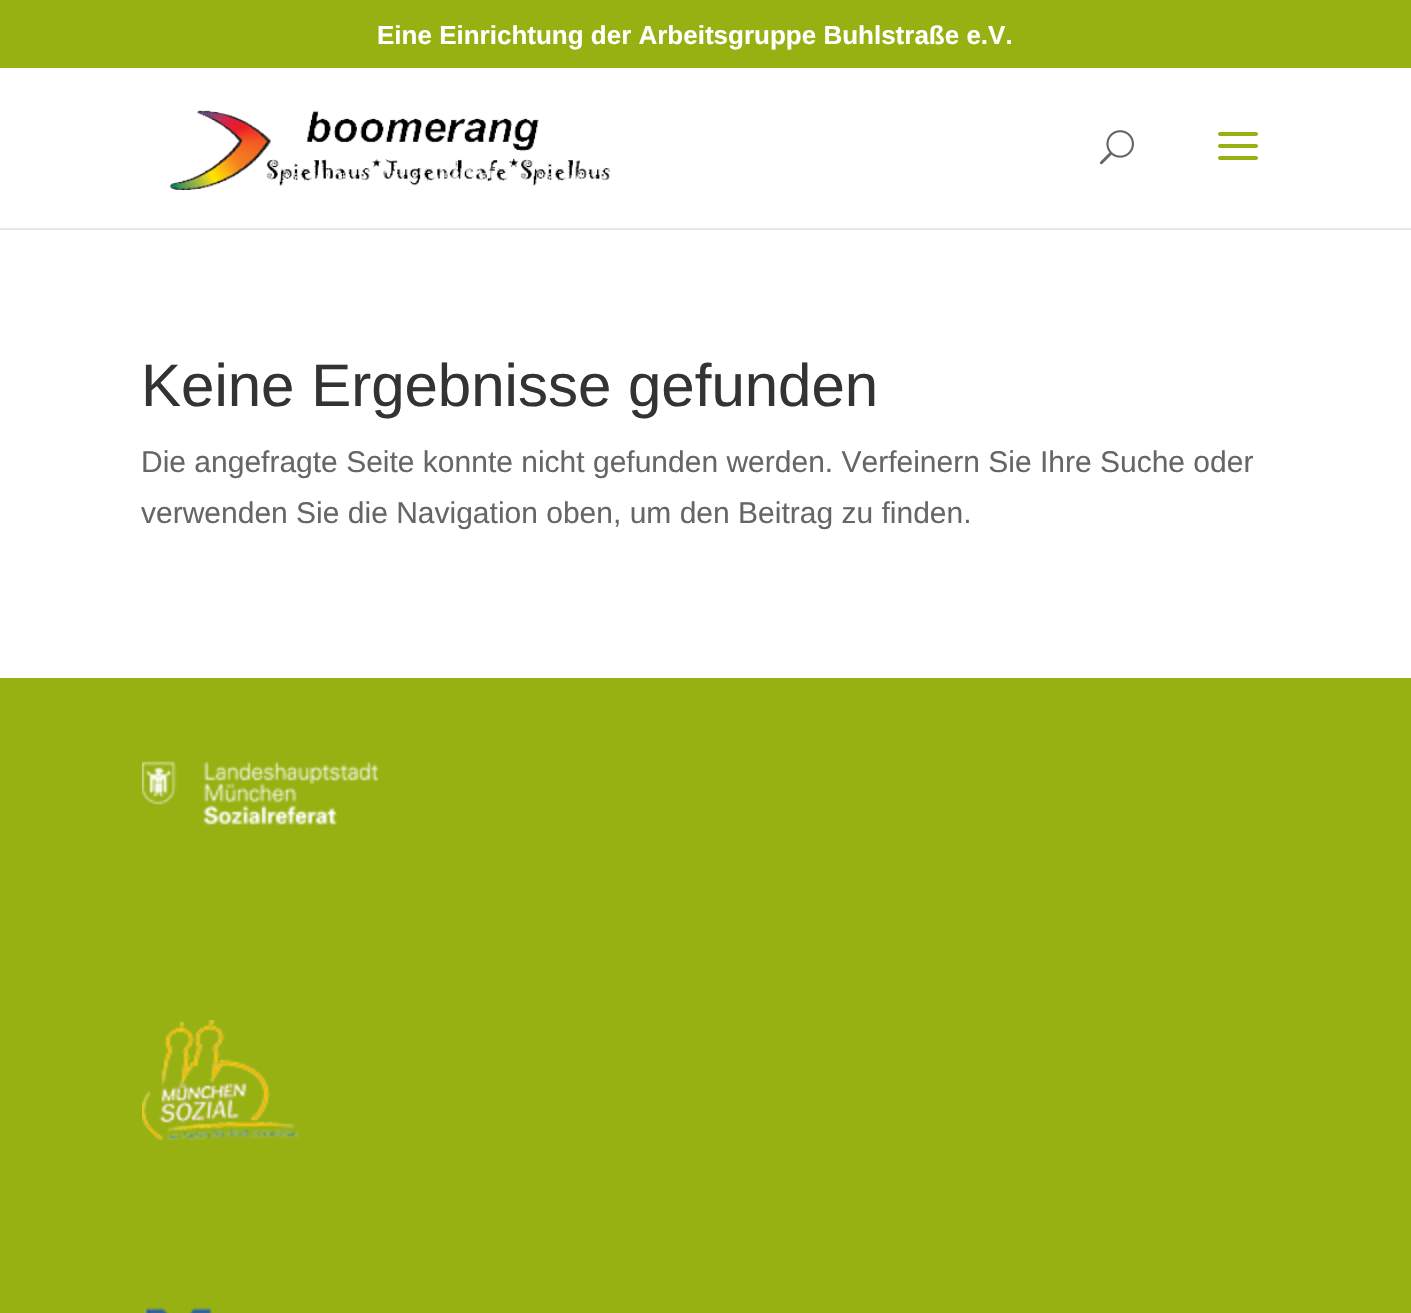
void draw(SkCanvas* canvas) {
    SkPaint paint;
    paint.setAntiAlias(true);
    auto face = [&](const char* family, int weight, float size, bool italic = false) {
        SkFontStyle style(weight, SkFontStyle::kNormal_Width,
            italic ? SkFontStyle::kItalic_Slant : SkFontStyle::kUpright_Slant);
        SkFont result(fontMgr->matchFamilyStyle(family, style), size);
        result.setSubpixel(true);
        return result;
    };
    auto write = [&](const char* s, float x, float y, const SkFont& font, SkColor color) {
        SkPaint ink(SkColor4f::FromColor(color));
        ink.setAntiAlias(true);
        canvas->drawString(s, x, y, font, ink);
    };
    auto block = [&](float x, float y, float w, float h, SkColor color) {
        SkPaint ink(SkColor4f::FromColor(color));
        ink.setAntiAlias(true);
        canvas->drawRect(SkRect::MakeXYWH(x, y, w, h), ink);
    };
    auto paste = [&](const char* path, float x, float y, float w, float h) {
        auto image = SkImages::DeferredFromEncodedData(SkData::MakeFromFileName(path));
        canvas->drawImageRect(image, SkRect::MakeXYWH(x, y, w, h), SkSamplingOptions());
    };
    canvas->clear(SK_ColorWHITE);
    block(0, 0, 1411, 68, SkColorSetRGB(151, 177, 19));
    auto kFont1 = face("Liberation Sans", 700, 26);
    write("Eine Einrichtung der Arbeitsgruppe Buhlstraße e.V.", 377, 44, kFont1, SK_ColorWHITE);
    block(0, 228, 1411, 2, SkColorSetRGB(230, 230, 230));
    paste("pic1.png", 169, 110, 441, 80);
    paste("pic2.png", 1099, 130, 35, 35);
    paste("pic3.png", 1218, 132, 40, 28);
    auto kFont2 = face("Liberation Sans", 400, 60);
    write("Keine Ergebnisse gefunden", 141, 406, kFont2, SkColorSetRGB(51, 51, 51));
    auto kFont3 = face("Liberation Sans", 400, 30);
    write("Die angefragte Seite konnte nicht gefunden werden. Verfeinern Sie Ihre Suche oder", 141, 472, kFont3, SkColorSetRGB(102, 102, 102));
    write("verwenden Sie die Navigation oben, um den Beitrag zu finden.", 141, 523, kFont3, SkColorSetRGB(102, 102, 102));
    block(0, 678, 1411, 635, SkColorSetRGB(151, 177, 19));
    paste("pic4.png", 142, 761, 236, 64);
    paste("pic5.png", 142, 1020, 156, 120);
    paste("pic6.png", 143, 1307, 70, 6);
}
